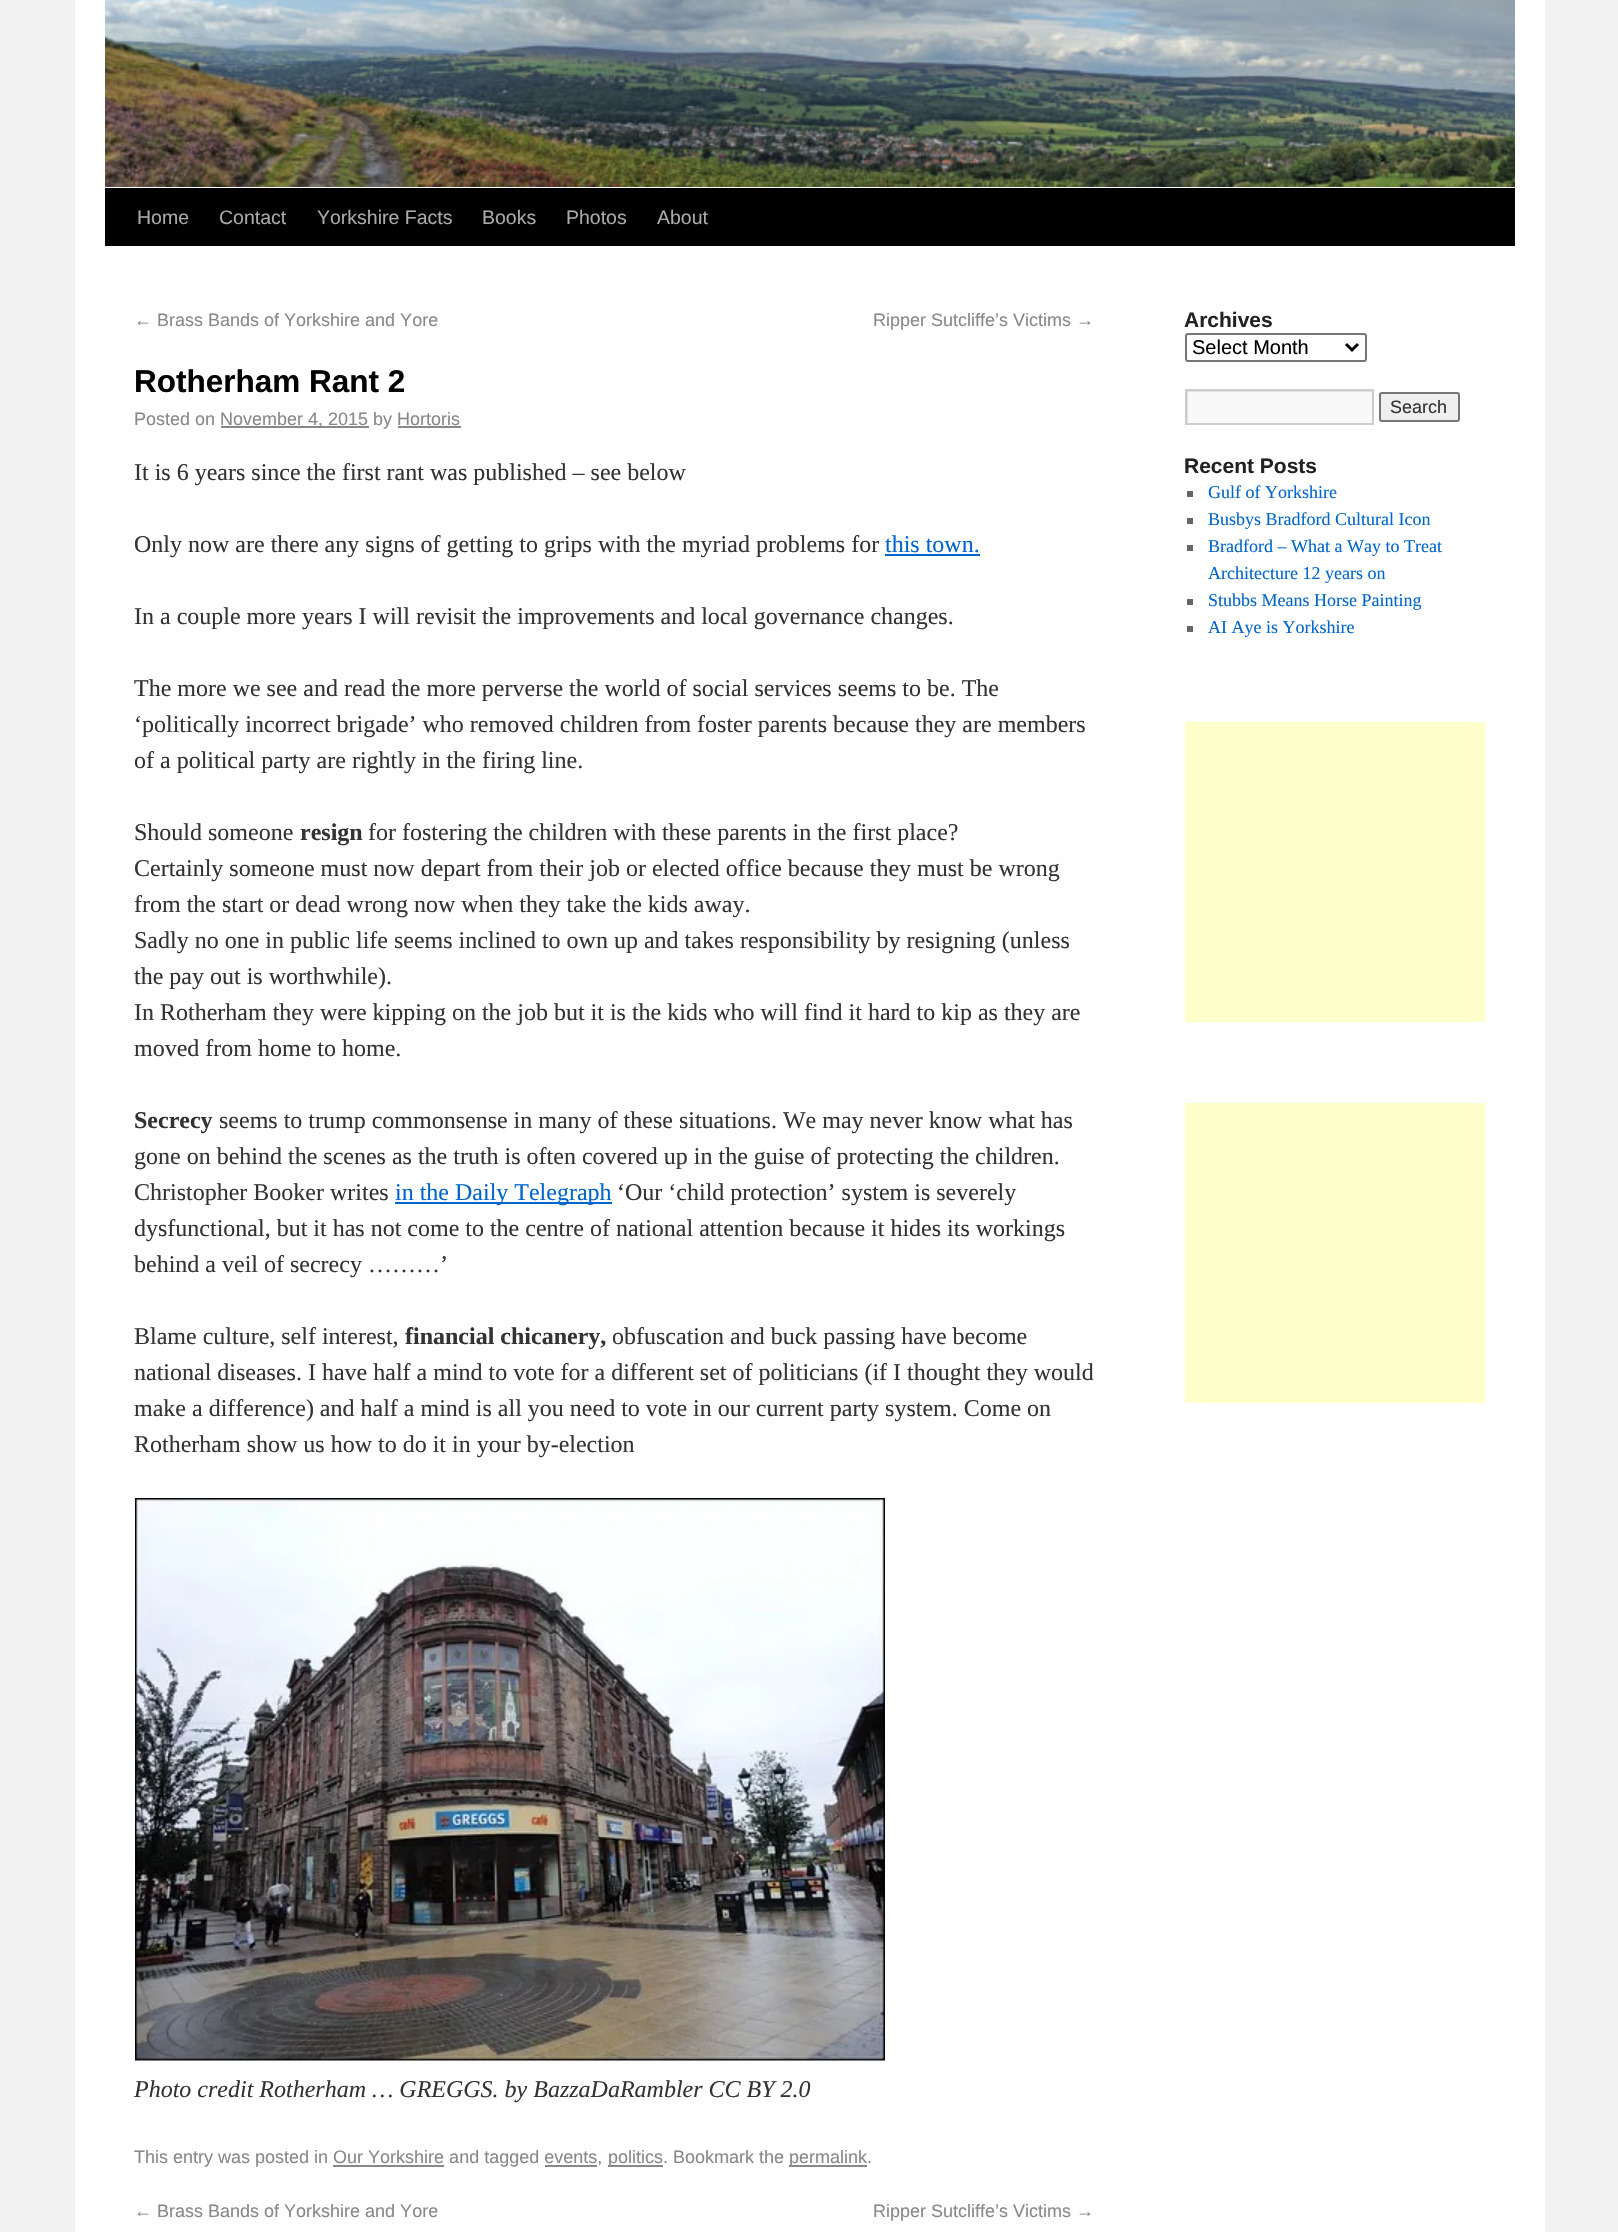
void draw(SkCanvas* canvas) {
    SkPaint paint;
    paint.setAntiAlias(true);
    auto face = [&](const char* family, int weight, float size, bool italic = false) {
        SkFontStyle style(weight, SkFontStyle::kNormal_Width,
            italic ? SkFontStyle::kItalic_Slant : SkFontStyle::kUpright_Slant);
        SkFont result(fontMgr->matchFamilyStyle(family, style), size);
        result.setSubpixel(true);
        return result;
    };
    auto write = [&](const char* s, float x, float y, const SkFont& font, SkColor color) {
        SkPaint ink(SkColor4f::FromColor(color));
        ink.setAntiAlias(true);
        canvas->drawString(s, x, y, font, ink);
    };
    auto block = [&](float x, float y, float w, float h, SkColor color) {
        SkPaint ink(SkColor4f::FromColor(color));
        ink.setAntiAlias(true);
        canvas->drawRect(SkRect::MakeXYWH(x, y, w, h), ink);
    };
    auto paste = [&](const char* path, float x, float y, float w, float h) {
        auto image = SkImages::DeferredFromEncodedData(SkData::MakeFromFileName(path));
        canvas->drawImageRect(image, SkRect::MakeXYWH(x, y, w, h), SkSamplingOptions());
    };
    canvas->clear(SkColorSetRGB(241, 241, 241));
    block(75, 0, 1470, 2232, SK_ColorWHITE);
    block(105, 188, 1410, 58, SK_ColorBLACK);
    paste("pic1.png", 105, 0, 1410, 187);
    auto kFont1 = face("Liberation Sans", 400, 19.5f);
    write("Home", 137, 224, kFont1, SkColorSetRGB(170, 170, 170));
    write("Contact", 219, 224, kFont1, SkColorSetRGB(170, 170, 170));
    write("Yorkshire Facts", 317, 224, kFont1, SkColorSetRGB(170, 170, 170));
    write("Books", 482, 224, kFont1, SkColorSetRGB(170, 170, 170));
    write("Photos", 566, 224, kFont1, SkColorSetRGB(170, 170, 170));
    write("About", 657, 224, kFont1, SkColorSetRGB(170, 170, 170));
    auto kFont2 = face("Liberation Sans", 400, 18);
    write("← Brass Bands of Yorkshire and Yore", 134, 326, kFont2, SkColorSetRGB(136, 136, 136));
    write("Ripper Sutcliffe’s Victims →", 873, 326, kFont2, SkColorSetRGB(136, 136, 136));
    auto kFont3 = face("Liberation Sans", 700, 31.5f);
    write("Rotherham Rant 2", 134, 392, kFont3, SK_ColorBLACK);
    write("Posted on", 134, 425, kFont2, SkColorSetRGB(136, 136, 136));
    block(221, 426, 148, 2, SkColorSetRGB(136, 136, 136));
    write("November 4, 2015 by Hortoris", 220, 425, kFont2, SkColorSetRGB(136, 136, 136));
    block(398, 426, 63, 2, SkColorSetRGB(136, 136, 136));
    auto kFont4 = face("Liberation Serif", 400, 24);
    write("It is 6 years since the first rant was published – see below", 134, 480, kFont4, SkColorSetRGB(51, 51, 51));
    write("Only now are there any signs of getting to grips with the myriad problems for", 134, 552, kFont4, SkColorSetRGB(51, 51, 51));
    write("this town.", 885, 552, kFont4, SkColorSetRGB(0, 102, 204));
    block(885, 554, 95, 2, SkColorSetRGB(0, 102, 204));
    write("In a couple more years I will revisit the improvements and local governance changes.", 134, 624, kFont4, SkColorSetRGB(51, 51, 51));
    write("The more we see and read the more perverse the world of social services seems to be. The", 134, 696, kFont4, SkColorSetRGB(51, 51, 51));
    write("‘politically incorrect brigade’ who removed children from foster parents because they are members", 134, 732, kFont4, SkColorSetRGB(51, 51, 51));
    write("of a political party are rightly in the firing line.", 134, 768, kFont4, SkColorSetRGB(51, 51, 51));
    write("Should someone", 134, 840, kFont4, SkColorSetRGB(51, 51, 51));
    auto kFont5 = face("Liberation Serif", 700, 24);
    write("resign", 300, 840, kFont5, SkColorSetRGB(51, 51, 51));
    write("for fostering the children with these parents in the first place?", 368, 840, kFont4, SkColorSetRGB(51, 51, 51));
    write("Certainly someone must now depart from their job or elected office because they must be wrong", 134, 876, kFont4, SkColorSetRGB(51, 51, 51));
    write("from the start or dead wrong now when they take the kids away.", 134, 912, kFont4, SkColorSetRGB(51, 51, 51));
    write("Sadly no one in public life seems inclined to own up and takes responsibility by resigning (unless", 134, 948, kFont4, SkColorSetRGB(51, 51, 51));
    write("the pay out is worthwhile).", 134, 984, kFont4, SkColorSetRGB(51, 51, 51));
    write("In Rotherham they were kipping on the job but it is the kids who will find it hard to kip as they are", 134, 1020, kFont4, SkColorSetRGB(51, 51, 51));
    write("moved from home to home.", 134, 1056, kFont4, SkColorSetRGB(51, 51, 51));
    write("Secrecy", 134, 1128, kFont5, SkColorSetRGB(51, 51, 51));
    write("seems to trump commonsense in many of these situations. We may never know what has", 219, 1128, kFont4, SkColorSetRGB(51, 51, 51));
    write("gone on behind the scenes as the truth is often covered up in the guise of protecting the children.", 134, 1164, kFont4, SkColorSetRGB(51, 51, 51));
    write("Christopher Booker writes", 134, 1200, kFont4, SkColorSetRGB(51, 51, 51));
    block(395, 1202, 217, 2, SkColorSetRGB(0, 102, 204));
    write("in the Daily Telegraph", 395, 1200, kFont4, SkColorSetRGB(0, 102, 204));
    write("‘Our ‘child protection’ system is severely", 617, 1200, kFont4, SkColorSetRGB(51, 51, 51));
    write("dysfunctional, but it has not come to the centre of national attention because it hides its workings", 134, 1236, kFont4, SkColorSetRGB(51, 51, 51));
    write("behind a veil of secrecy ………’", 134, 1272, kFont4, SkColorSetRGB(51, 51, 51));
    write("Blame culture, self interest,", 134, 1344, kFont4, SkColorSetRGB(51, 51, 51));
    write("financial chicanery,", 405, 1344, kFont5, SkColorSetRGB(51, 51, 51));
    write("obfuscation and buck passing have become", 612, 1344, kFont4, SkColorSetRGB(51, 51, 51));
    write("national diseases. I have half a mind to vote for a different set of politicians (if I thought they would", 134, 1380, kFont4, SkColorSetRGB(51, 51, 51));
    write("make a difference) and half a mind is all you need to vote in our current party system. Come on", 134, 1416, kFont4, SkColorSetRGB(51, 51, 51));
    write("Rotherham show us how to do it in your by-election", 134, 1452, kFont4, SkColorSetRGB(51, 51, 51));
    paste("pic2.png", 135, 1498, 750, 563);
    auto kFont6 = face("Liberation Serif", 400, 24, true);
    write("Photo credit Rotherham … GREGGS. by BazzaDaRambler CC BY 2.0", 134, 2097, kFont6, SkColorSetRGB(51, 51, 51));
    write("This entry was posted in Our Yorkshire and tagged events,", 134, 2163, kFont2, SkColorSetRGB(136, 136, 136));
    block(608, 2165, 55, 2, SkColorSetRGB(136, 136, 136));
    write("politics. Bookmark the", 608, 2163, kFont2, SkColorSetRGB(136, 136, 136));
    block(789, 2165, 78, 2, SkColorSetRGB(136, 136, 136));
    write("permalink.", 789, 2163, kFont2, SkColorSetRGB(136, 136, 136));
    block(333, 2165, 111, 2, SkColorSetRGB(136, 136, 136));
    block(545, 2165, 52, 2, SkColorSetRGB(136, 136, 136));
    write("← Brass Bands of Yorkshire and Yore", 134, 2217, kFont2, SkColorSetRGB(136, 136, 136));
    write("Ripper Sutcliffe’s Victims →", 873, 2217, kFont2, SkColorSetRGB(136, 136, 136));
    auto kFont7 = face("Liberation Sans", 700, 21);
    write("Archives", 1184, 327, kFont7, SkColorSetRGB(34, 34, 34));
    paint.setStyle(SkPaint::kStroke_Style);
    paint.setStrokeWidth(2);
    paint.setColor(SkColorSetRGB(118, 118, 118));
    canvas->drawRoundRect(SkRect::MakeXYWH(1186, 334, 180, 27), 2, 2, paint);
    paint.setStrokeWidth(3);
    paint.setColor(SK_ColorBLACK);
    canvas->drawPath(SkPathBuilder().moveTo(1346, 344).lineTo(1352, 350).lineTo(1358, 344).detach(), paint);
    auto kFont8 = face("Liberation Sans", 400, 20);
    write("Select Month", 1192, 354, kFont8, SK_ColorBLACK);
    block(1188, 392, 184, 31, SkColorSetRGB(249, 249, 249));
    canvas->save();
    canvas->clipRect(SkRect::MakeXYWH(1187, 390, 186, 33));
    paint.setStyle(SkPaint::kFill_Style);
    paint.setColor(SkColorSetRGB(224, 224, 224));
    canvas->drawPath(SkPathBuilder(SkPathFillType::kEvenOdd).moveTo(1038, 242).lineTo(1521, 242).lineTo(1521, 572).lineTo(1038, 572).close().moveTo(1188, 392).lineTo(1374, 392).lineTo(1374, 424).lineTo(1188, 424).close().detach(), paint);
    canvas->restore();
    paint.setStyle(SkPaint::kStroke_Style);
    paint.setStrokeWidth(2);
    paint.setColor(SkColorSetRGB(204, 204, 204));
    canvas->drawRect(SkRect::MakeXYWH(1186, 390, 187, 34), paint);
    paint.setStyle(SkPaint::kFill_Style);
    paint.setColor(SkColorSetRGB(239, 239, 239));
    canvas->drawRoundRect(SkRect::MakeXYWH(1380, 393, 79, 28), 2, 2, paint);
    paint.setStyle(SkPaint::kStroke_Style);
    paint.setColor(SkColorSetRGB(118, 118, 118));
    canvas->drawRoundRect(SkRect::MakeXYWH(1380, 393, 79, 28), 2, 2, paint);
    write("Search", 1390, 413, kFont2, SkColorSetRGB(51, 51, 51));
    write("Recent Posts", 1184, 473, kFont7, SkColorSetRGB(34, 34, 34));
    block(1187, 491, 6, 6, SkColorSetRGB(102, 102, 102));
    auto kFont9 = face("Liberation Serif", 400, 18);
    write("Gulf of Yorkshire", 1208, 498, kFont9, SkColorSetRGB(0, 102, 204));
    block(1187, 518, 6, 6, SkColorSetRGB(102, 102, 102));
    write("Busbys Bradford Cultural Icon", 1208, 525, kFont9, SkColorSetRGB(0, 102, 204));
    block(1187, 545, 6, 6, SkColorSetRGB(102, 102, 102));
    write("Bradford – What a Way to Treat", 1208, 552, kFont9, SkColorSetRGB(0, 102, 204));
    write("Architecture 12 years on", 1208, 579, kFont9, SkColorSetRGB(0, 102, 204));
    block(1187, 599, 6, 6, SkColorSetRGB(102, 102, 102));
    write("Stubbs Means Horse Painting", 1208, 606, kFont9, SkColorSetRGB(0, 102, 204));
    block(1187, 626, 6, 6, SkColorSetRGB(102, 102, 102));
    write("AI Aye is Yorkshire", 1208, 633, kFont9, SkColorSetRGB(0, 102, 204));
    block(1185, 722, 300, 300, SkColorSetRGB(255, 255, 204));
    block(1185, 1103, 300, 300, SkColorSetRGB(255, 255, 204));
}
